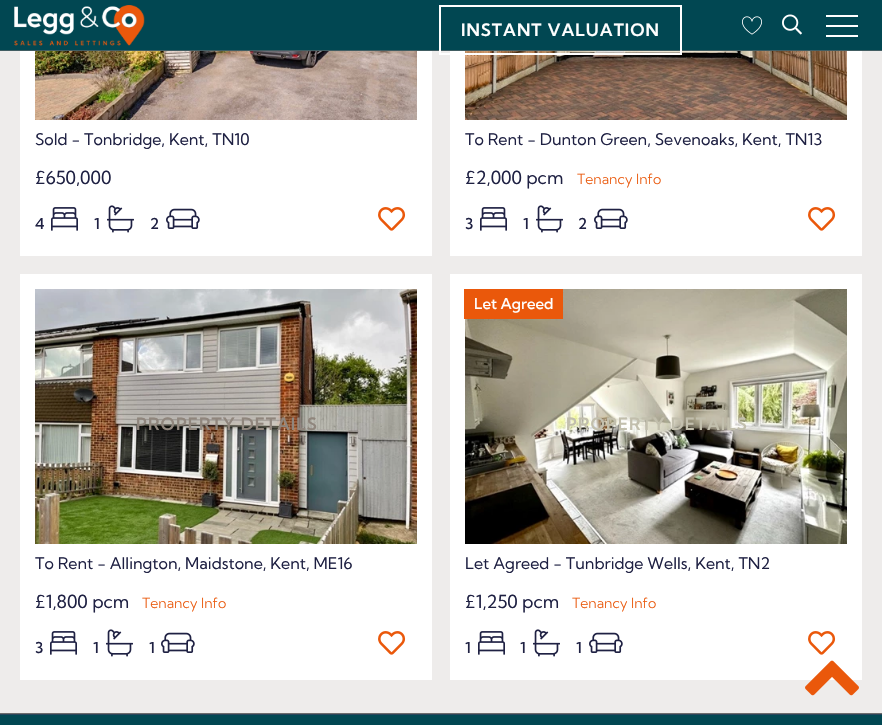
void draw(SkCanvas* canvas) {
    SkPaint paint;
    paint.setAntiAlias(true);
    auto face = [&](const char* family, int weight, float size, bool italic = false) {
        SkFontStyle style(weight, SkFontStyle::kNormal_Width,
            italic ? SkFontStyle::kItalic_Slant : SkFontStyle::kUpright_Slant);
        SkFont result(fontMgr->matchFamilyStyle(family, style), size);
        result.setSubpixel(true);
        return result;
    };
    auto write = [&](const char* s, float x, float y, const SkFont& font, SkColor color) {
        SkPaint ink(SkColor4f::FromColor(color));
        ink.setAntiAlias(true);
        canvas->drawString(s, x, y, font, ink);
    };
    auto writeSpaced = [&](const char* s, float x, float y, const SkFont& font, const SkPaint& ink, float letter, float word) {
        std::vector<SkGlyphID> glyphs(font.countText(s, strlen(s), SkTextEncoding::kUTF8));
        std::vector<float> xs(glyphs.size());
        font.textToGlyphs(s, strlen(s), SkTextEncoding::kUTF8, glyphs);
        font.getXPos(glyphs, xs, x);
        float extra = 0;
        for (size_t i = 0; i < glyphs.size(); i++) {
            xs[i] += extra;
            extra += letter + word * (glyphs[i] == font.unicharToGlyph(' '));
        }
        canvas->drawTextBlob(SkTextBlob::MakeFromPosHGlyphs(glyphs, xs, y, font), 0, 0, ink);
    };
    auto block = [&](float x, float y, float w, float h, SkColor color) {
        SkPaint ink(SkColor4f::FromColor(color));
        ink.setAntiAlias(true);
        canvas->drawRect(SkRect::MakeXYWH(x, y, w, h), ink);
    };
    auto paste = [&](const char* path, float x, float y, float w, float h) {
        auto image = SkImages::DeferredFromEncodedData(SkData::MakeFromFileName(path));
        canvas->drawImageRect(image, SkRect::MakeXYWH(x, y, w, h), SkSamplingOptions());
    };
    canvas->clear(SkColorSetRGB(1, 71, 82));
    block(0, 50, 882, 1, SkColorSetRGB(65, 93, 98));
    paste("pic1.png", 14, 5, 131, 41);
    block(0, 51, 882, 662, SkColorSetRGB(238, 236, 235));
    block(450, 51, 412, 205, SK_ColorWHITE);
    paste("pic9.png", 465, 51, 382, 69);
    paint.setStyle(SkPaint::kStroke_Style);
    paint.setStrokeWidth(2);
    paint.setColor(SK_ColorWHITE);
    canvas->drawRect(SkRect::MakeXYWH(440, 6, 241, 48), paint);
    auto kFont1 = face("Kumbh Sans", 600, 17);
    paint.setStyle(SkPaint::kFill_Style);
    writeSpaced("INSTANT VALUATION", 461, 36, kFont1, paint, 1, 0);
    paste("pic2.png", 742, 16, 20, 19);
    paste("pic3.png", 782, 14, 20, 21);
    block(826, 15, 32, 2, SK_ColorWHITE);
    block(826, 25, 32, 2, SK_ColorWHITE);
    block(826, 35, 32, 2, SK_ColorWHITE);
    block(0, 713, 882, 1, SkColorSetRGB(108, 108, 108));
    block(20, 51, 412, 205, SK_ColorWHITE);
    paste("pic4.png", 35, 51, 382, 69);
    auto kFont2 = face("Kumbh Sans", 400, 16);
    write("Sold - Tonbridge, Kent, TN10", 35, 145, kFont2, SkColorSetRGB(31, 33, 67));
    auto kFont3 = face("Kumbh Sans", 400, 18);
    write("£650,000", 35, 184, kFont3, SkColorSetRGB(31, 33, 67));
    auto kFont4 = face("Kumbh Sans", 500, 15);
    write("4", 35, 229, kFont4, SkColorSetRGB(31, 33, 67));
    paste("pic5.png", 51, 207, 27, 24);
    write("1", 94, 229, kFont4, SkColorSetRGB(31, 33, 67));
    paste("pic6.png", 107, 205, 27, 28);
    write("2", 150, 229, kFont4, SkColorSetRGB(31, 33, 67));
    paste("pic7.png", 166, 208, 34, 21);
    paste("pic8.png", 378, 207, 28, 24);
    write("To Rent - Dunton Green, Sevenoaks, Kent, TN13", 465, 145, kFont2, SkColorSetRGB(31, 33, 67));
    write("£2,000 pcm", 465, 184, kFont3, SkColorSetRGB(31, 33, 67));
    auto kFont5 = face("Kumbh Sans", 300, 14);
    write("Tenancy Info", 577, 184, kFont5, SkColorSetRGB(234, 88, 11));
    write("3", 465, 229, kFont4, SkColorSetRGB(31, 33, 67));
    paste("pic5.png", 480, 207, 27, 24);
    write("1", 523, 229, kFont4, SkColorSetRGB(31, 33, 67));
    paste("pic6.png", 536, 205, 27, 28);
    write("2", 578, 229, kFont4, SkColorSetRGB(31, 33, 67));
    paste("pic7.png", 594, 208, 34, 21);
    paste("pic8.png", 808, 207, 28, 24);
    block(20, 274, 412, 406, SK_ColorWHITE);
    paste("pic10.png", 35, 289, 382, 255);
    paint.setColor(SkColorSetRGB(144, 134, 125));
    writeSpaced("PROPERTY DETAILS", 136, 430, kFont1, paint, 1, 0);
    write("To Rent - Allington, Maidstone, Kent, ME16", 35, 569, kFont2, SkColorSetRGB(31, 33, 67));
    write("£1,800 pcm", 35, 608, kFont3, SkColorSetRGB(31, 33, 67));
    write("Tenancy Info", 142, 608, kFont5, SkColorSetRGB(234, 88, 11));
    write("3", 35, 653, kFont4, SkColorSetRGB(31, 33, 67));
    paste("pic5.png", 50, 631, 27, 24);
    write("1", 93, 653, kFont4, SkColorSetRGB(31, 33, 67));
    paste("pic6.png", 106, 629, 27, 28);
    write("1", 149, 653, kFont4, SkColorSetRGB(31, 33, 67));
    paste("pic7.png", 161, 632, 34, 21);
    paste("pic8.png", 378, 631, 28, 24);
    block(450, 274, 412, 406, SK_ColorWHITE);
    paste("pic11.png", 465, 289, 382, 255);
    block(464, 289, 99, 30, SkColorSetRGB(234, 88, 11));
    write("Let Agreed", 474, 309, kFont4, SK_ColorWHITE);
    paint.setColor(SkColorSetRGB(194, 191, 173));
    writeSpaced("PROPERTY DETAILS", 566, 430, kFont1, paint, 1, 0);
    write("Let Agreed - Tunbridge Wells, Kent, TN2", 465, 569, kFont2, SkColorSetRGB(31, 33, 67));
    write("£1,250 pcm", 465, 608, kFont3, SkColorSetRGB(31, 33, 67));
    write("Tenancy Info", 572, 608, kFont5, SkColorSetRGB(234, 88, 11));
    write("1", 465, 653, kFont4, SkColorSetRGB(31, 33, 67));
    paste("pic5.png", 478, 631, 27, 24);
    write("1", 520, 653, kFont4, SkColorSetRGB(31, 33, 67));
    paste("pic6.png", 533, 629, 27, 28);
    write("1", 576, 653, kFont4, SkColorSetRGB(31, 33, 67));
    paste("pic7.png", 589, 632, 34, 21);
    paste("pic8.png", 808, 631, 28, 24);
    paste("pic12.png", 805, 660, 54, 36);
    block(0, 714, 882, 1, SkColorSetRGB(41, 68, 91));
}
